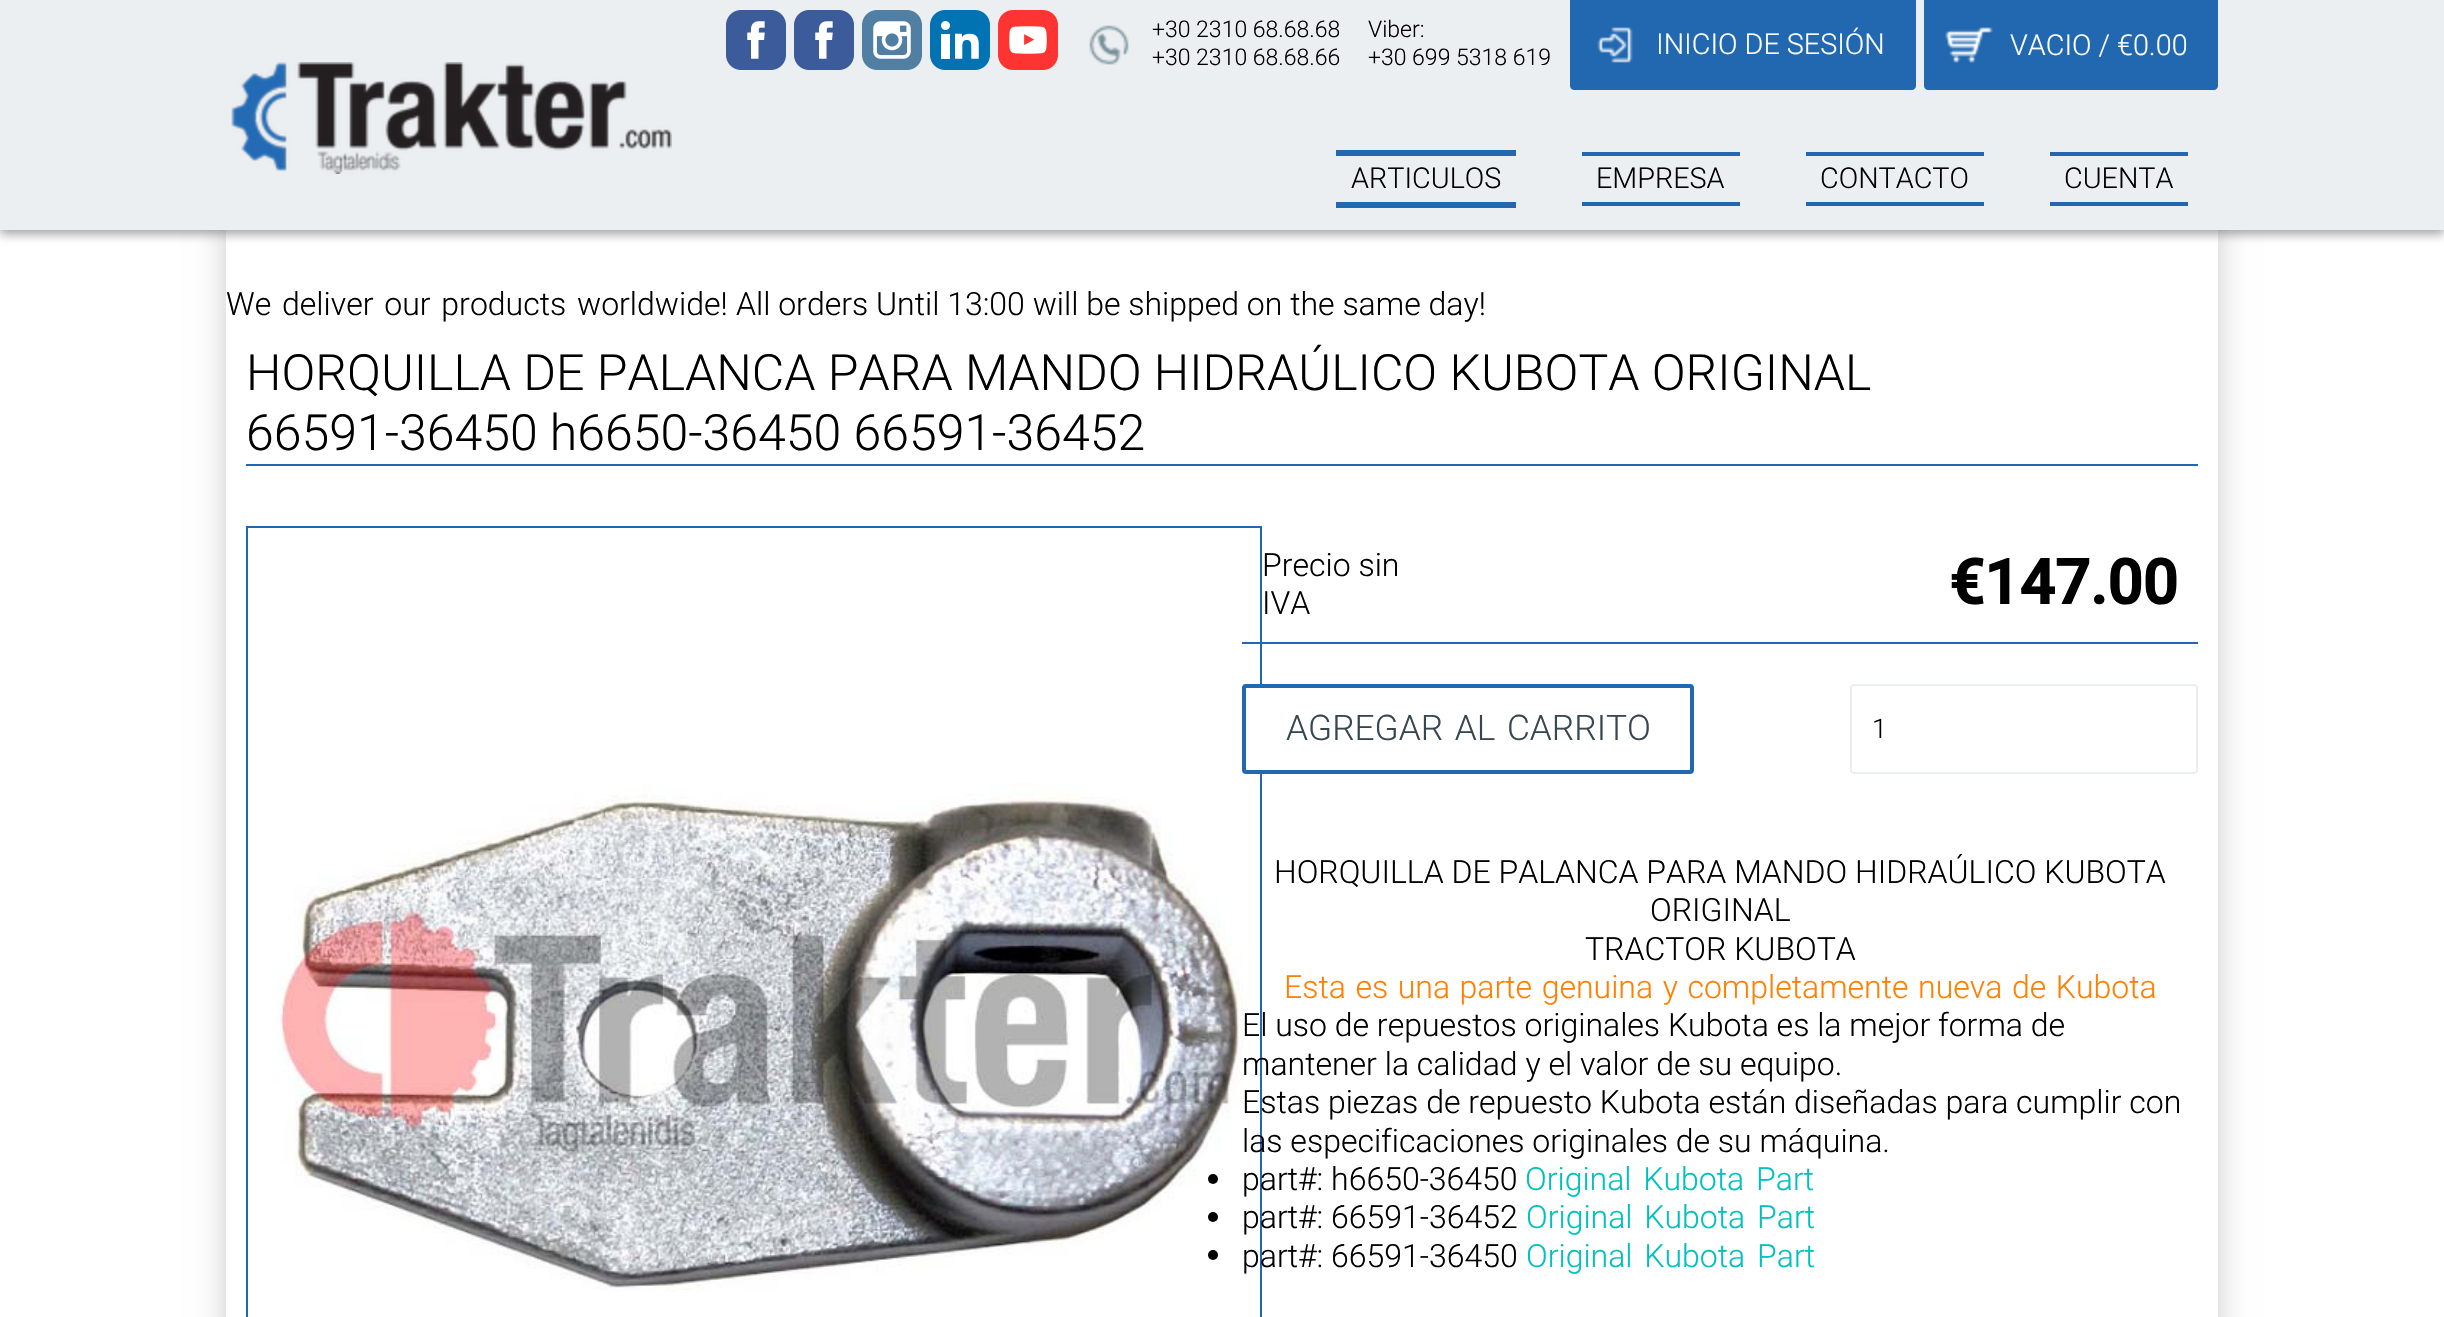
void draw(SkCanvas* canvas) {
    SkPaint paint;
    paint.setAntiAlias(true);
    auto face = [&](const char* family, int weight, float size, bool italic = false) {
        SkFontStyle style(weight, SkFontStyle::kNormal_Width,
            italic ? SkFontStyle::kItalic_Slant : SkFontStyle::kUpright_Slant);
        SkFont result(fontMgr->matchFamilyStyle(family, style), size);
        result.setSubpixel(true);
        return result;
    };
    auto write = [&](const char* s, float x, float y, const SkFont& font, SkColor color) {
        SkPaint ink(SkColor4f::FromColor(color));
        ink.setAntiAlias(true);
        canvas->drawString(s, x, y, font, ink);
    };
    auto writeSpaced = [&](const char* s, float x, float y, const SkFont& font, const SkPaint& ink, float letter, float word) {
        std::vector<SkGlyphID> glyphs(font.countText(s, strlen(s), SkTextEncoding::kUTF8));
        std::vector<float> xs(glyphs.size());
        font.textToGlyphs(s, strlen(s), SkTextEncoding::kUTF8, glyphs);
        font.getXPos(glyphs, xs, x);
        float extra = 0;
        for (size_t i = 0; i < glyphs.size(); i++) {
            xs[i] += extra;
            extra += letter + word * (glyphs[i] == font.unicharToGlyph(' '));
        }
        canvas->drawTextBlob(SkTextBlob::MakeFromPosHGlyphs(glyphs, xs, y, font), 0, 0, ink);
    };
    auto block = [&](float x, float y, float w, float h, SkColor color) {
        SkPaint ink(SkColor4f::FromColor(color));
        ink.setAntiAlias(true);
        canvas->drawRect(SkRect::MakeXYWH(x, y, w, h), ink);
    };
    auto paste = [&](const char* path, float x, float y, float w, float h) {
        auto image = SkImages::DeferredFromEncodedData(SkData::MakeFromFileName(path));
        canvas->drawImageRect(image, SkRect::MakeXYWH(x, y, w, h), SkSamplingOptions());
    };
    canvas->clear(SK_ColorWHITE);
    canvas->save();
    canvas->clipPath(SkPathBuilder(SkPathFillType::kEvenOdd).moveTo(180, 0).lineTo(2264, 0).lineTo(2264, 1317).lineTo(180, 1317).close().moveTo(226, 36).lineTo(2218, 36).lineTo(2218, 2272).lineTo(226, 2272).close().detach(), true);
    paint.setColor(SkColorSetARGB(51, 0, 0, 0));
    paint.setMaskFilter(SkMaskFilter::MakeBlur(kNormal_SkBlurStyle, 15));
    canvas->drawRect(SkRect::MakeXYWH(226, 36, 1992, 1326), paint);
    paint.setMaskFilter(nullptr);
    canvas->restore();
    paint.setColor(SkColorSetARGB(191, 128, 128, 128));
    paint.setMaskFilter(SkMaskFilter::MakeBlur(kNormal_SkBlurStyle, 5));
    canvas->drawRect(SkRect::MakeXYWH(0, 4, 2444, 230), paint);
    paint.setMaskFilter(nullptr);
    block(0, 0, 2444, 230, SkColorSetRGB(236, 239, 241));
    paste("pic1.png", 231, 62, 441, 112);
    paste("pic2.png", 726, 10, 60, 60);
    paste("pic2.png", 794, 10, 60, 60);
    paste("pic3.png", 862, 10, 60, 60);
    paste("pic4.png", 930, 10, 60, 60);
    paste("pic5.png", 998, 10, 60, 60);
    paste("pic6.png", 1089, 25, 40, 40);
    auto kFont1 = face("Roboto", 300, 23);
    write("+30 2310 68.68.68", 1152, 37, kFont1, SK_ColorBLACK);
    write("+30 2310 68.68.66", 1152, 65, kFont1, SK_ColorBLACK);
    write("Viber:", 1368, 37, kFont1, SK_ColorBLACK);
    write("+30 699 5318 619", 1368, 65, kFont1, SK_ColorBLACK);
    paint.setColor(SkColorSetRGB(33, 104, 177));
    canvas->drawPath(SkPathBuilder().moveTo(1570, 0).lineTo(1916, 0).lineTo(1916, 86).cubicTo(1916, 88, 1914, 90, 1912, 90).lineTo(1574, 90).cubicTo(1572, 90, 1570, 88, 1570, 86).close().detach(), paint);
    paste("pic7.png", 1597, 27, 36, 36);
    auto kFont2 = face("Roboto", 300, 28.75f);
    write("INICIO DE SESIÓN", 1656, 54, kFont2, SK_ColorWHITE);
    canvas->drawPath(SkPathBuilder().moveTo(1924, 0).lineTo(2218, 0).lineTo(2218, 86).cubicTo(2218, 88, 2216, 90, 2214, 90).lineTo(1928, 90).cubicTo(1926, 90, 1924, 88, 1924, 86).close().detach(), paint);
    paste("pic8.png", 1945, 27, 48, 36);
    write("VACIO / €0.00", 2010, 55, kFont2, SK_ColorWHITE);
    block(1336, 150, 180, 6, SkColorSetRGB(33, 104, 177));
    block(1336, 202, 180, 6, SkColorSetRGB(33, 104, 177));
    write("ARTICULOS", 1351, 188, kFont2, SK_ColorBLACK);
    block(1582, 152, 158, 4, SkColorSetRGB(33, 104, 177));
    block(1582, 202, 158, 4, SkColorSetRGB(33, 104, 177));
    write("EMPRESA", 1596, 188, kFont2, SK_ColorBLACK);
    block(1806, 152, 178, 4, SkColorSetRGB(33, 104, 177));
    block(1806, 202, 178, 4, SkColorSetRGB(33, 104, 177));
    write("CONTACTO", 1820, 188, kFont2, SK_ColorBLACK);
    block(2050, 152, 138, 4, SkColorSetRGB(33, 104, 177));
    block(2050, 202, 138, 4, SkColorSetRGB(33, 104, 177));
    write("CUENTA", 2064, 188, kFont2, SK_ColorBLACK);
    auto kFont3 = face("Roboto", 300, 32);
    paint.setColor(SK_ColorBLACK);
    writeSpaced("We deliver our products worldwide!", 226, 315, kFont3, paint, 0, 3);
    write("All orders Until 13:00 will be shipped on the same day!", 736, 315, kFont3, SK_ColorBLACK);
    block(246, 464, 1952, 2, SkColorSetRGB(33, 104, 177));
    auto kFont4 = face("Roboto", 300, 50);
    write("HORQUILLA DE PALANCA PARA MANDO HIDRAÚLICO KUBOTA ORIGINAL", 246, 390, kFont4, SK_ColorBLACK);
    write("66591-36450 h6650-36450 66591-36452", 246, 450, kFont4, SK_ColorBLACK);
    paint.setStyle(SkPaint::kStroke_Style);
    paint.setStrokeWidth(2);
    paint.setColor(SkColorSetRGB(33, 104, 177));
    canvas->drawRect(SkRect::MakeXYWH(247, 527, 1014, 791), paint);
    paste("pic9.png", 273, 783, 970, 509);
    block(1242, 642, 956, 2, SkColorSetRGB(33, 104, 177));
    write("Precio sin", 1262, 576, kFont3, SK_ColorBLACK);
    write("IVA", 1262, 614, kFont3, SK_ColorBLACK);
    auto kFont5 = face("Roboto", 700, 62);
    write("€147.00", 1949, 604, kFont5, SK_ColorBLACK);
    paint.setStyle(SkPaint::kFill_Style);
    paint.setColor(SK_ColorWHITE);
    canvas->drawRoundRect(SkRect::MakeXYWH(1244, 686, 448, 86), 2, 2, paint);
    paint.setStyle(SkPaint::kStroke_Style);
    paint.setStrokeWidth(4);
    paint.setColor(SkColorSetRGB(33, 104, 177));
    canvas->drawRoundRect(SkRect::MakeXYWH(1244, 686, 448, 86), 2, 2, paint);
    auto kFont6 = face("Roboto", 300, 35.25f);
    paint.setStyle(SkPaint::kFill_Style);
    paint.setColor(SkColorSetRGB(55, 71, 79));
    writeSpaced("AGREGAR AL CARRITO", 1286, 740, kFont6, paint, 0, 3);
    paint.setStyle(SkPaint::kStroke_Style);
    paint.setStrokeWidth(2);
    paint.setColor(SkColorSetRGB(236, 239, 241));
    canvas->drawRoundRect(SkRect::MakeXYWH(1851, 685, 346, 88), 3, 3, paint);
    auto kFont7 = face("Roboto", 300, 27);
    write("1", 1872, 738, kFont7, SK_ColorBLACK);
    write("HORQUILLA DE PALANCA PARA MANDO HIDRAÚLICO KUBOTA", 1274, 883, kFont3, SK_ColorBLACK);
    write("ORIGINAL", 1650, 921, kFont3, SK_ColorBLACK);
    write("TRACTOR KUBOTA", 1585, 960, kFont3, SK_ColorBLACK);
    paint.setStyle(SkPaint::kFill_Style);
    paint.setColor(SkColorSetRGB(255, 128, 0));
    writeSpaced("Esta es una parte genuina y completamente nueva de Kubota", 1284, 998, kFont3, paint, 0, 1.75f);
    write("El uso de repuestos originales Kubota es la mejor forma de", 1242, 1036, kFont3, SK_ColorBLACK);
    write("mantener la calidad y el valor de su equipo.", 1242, 1075, kFont3, SK_ColorBLACK);
    write("Estas piezas de repuesto Kubota están diseñadas para cumplir con", 1242, 1113, kFont3, SK_ColorBLACK);
    write("las especificaciones originales de su máquina.", 1242, 1152, kFont3, SK_ColorBLACK);
    paint.setColor(SK_ColorBLACK);
    canvas->drawCircle(1213, 1179, 5, paint);
    write("part#: h6650-36450", 1242, 1190, kFont3, SK_ColorBLACK);
    paint.setColor(SkColorSetRGB(0, 192, 192));
    writeSpaced("Original Kubota Part", 1525, 1190, kFont3, paint, 0, 4);
    paint.setColor(SK_ColorBLACK);
    canvas->drawCircle(1213, 1217, 5, paint);
    write("part#: 66591-36452", 1242, 1228, kFont3, SK_ColorBLACK);
    paint.setColor(SkColorSetRGB(0, 192, 192));
    writeSpaced("Original Kubota Part", 1526, 1228, kFont3, paint, 0, 4);
    paint.setColor(SK_ColorBLACK);
    canvas->drawCircle(1213, 1255, 5, paint);
    write("part#: 66591-36450", 1242, 1267, kFont3, SK_ColorBLACK);
    paint.setColor(SkColorSetRGB(0, 192, 192));
    writeSpaced("Original Kubota Part", 1526, 1267, kFont3, paint, 0, 4);
}
